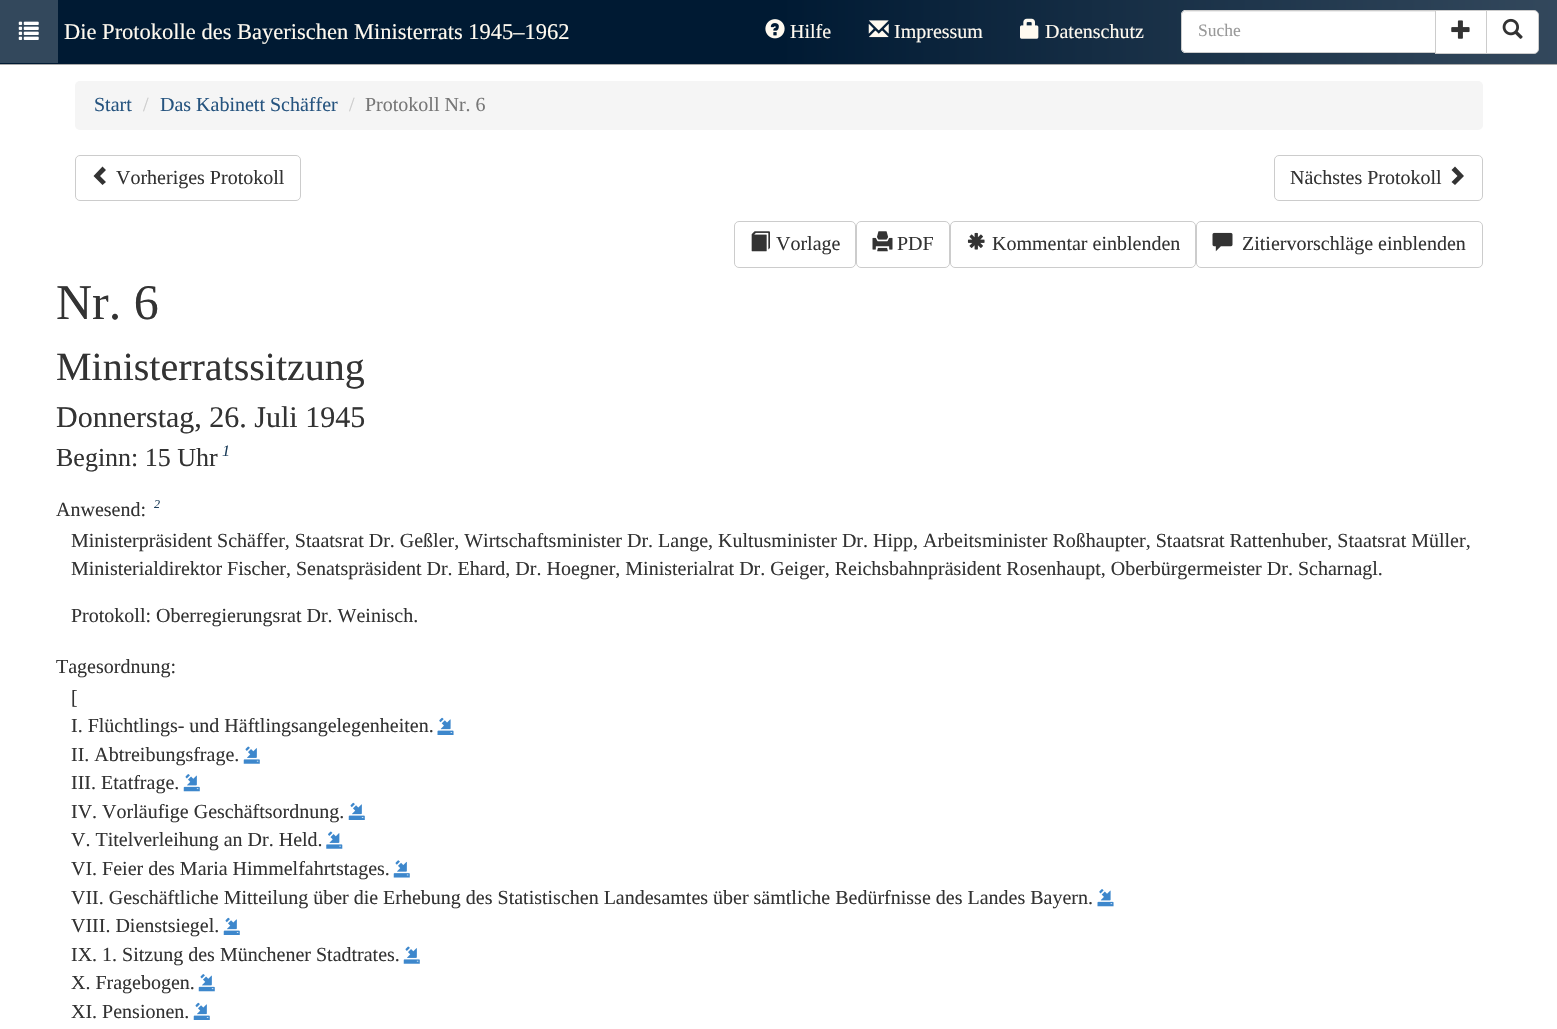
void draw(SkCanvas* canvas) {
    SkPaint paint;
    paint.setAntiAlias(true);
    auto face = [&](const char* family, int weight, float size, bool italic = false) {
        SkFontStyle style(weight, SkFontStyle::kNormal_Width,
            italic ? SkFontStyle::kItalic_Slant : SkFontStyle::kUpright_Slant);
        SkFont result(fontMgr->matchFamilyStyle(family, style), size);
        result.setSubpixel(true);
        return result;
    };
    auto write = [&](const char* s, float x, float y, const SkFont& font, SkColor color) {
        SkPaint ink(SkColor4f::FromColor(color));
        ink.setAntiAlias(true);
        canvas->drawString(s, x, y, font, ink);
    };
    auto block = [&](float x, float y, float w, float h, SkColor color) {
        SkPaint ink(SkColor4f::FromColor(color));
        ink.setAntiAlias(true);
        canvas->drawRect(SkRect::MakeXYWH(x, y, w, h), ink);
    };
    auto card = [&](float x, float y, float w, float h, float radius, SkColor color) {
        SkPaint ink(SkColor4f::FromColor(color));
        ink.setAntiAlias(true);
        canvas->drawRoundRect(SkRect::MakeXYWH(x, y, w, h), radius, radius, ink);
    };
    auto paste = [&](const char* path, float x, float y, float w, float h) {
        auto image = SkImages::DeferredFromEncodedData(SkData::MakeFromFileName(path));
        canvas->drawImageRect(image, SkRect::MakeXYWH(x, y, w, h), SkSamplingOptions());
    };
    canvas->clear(SK_ColorWHITE);
    {
        const SkColor colors[] = {SkColorSetRGB(0, 26, 51), SkColorSetRGB(0, 26, 51), SkColorSetRGB(51, 72, 92)};
        const float stops[] = {0, 0.5f, 1};
        const SkPoint ends[] = {{0, 32}, {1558, 32}};
        paint.setShader(SkGradientShader::MakeLinear(ends, colors, stops, 3, SkTileMode::kClamp));
        paint.setAlpha(255);
    }
    canvas->drawRect(SkRect::MakeXYWH(0, 0, 1557, 64), paint);
    block(0, 64, 1557, 1, SkColorSetRGB(170, 170, 170));
    block(0, 0, 58, 63, SkColorSetRGB(51, 72, 92));
    paste("pic1.png", 18, 21, 21, 19);
    auto kFont1 = face("Liberation Serif", 400, 22.5f);
    write("Die Protokolle des Bayerischen Ministerrats 1945–1962", 64, 39, kFont1, SkColorSetRGB(255, 250, 240));
    paste("pic2.png", 765, 19, 20, 20);
    auto kFont2 = face("Liberation Serif", 400, 20);
    write("Hilfe", 790, 38, kFont2, SkColorSetRGB(255, 250, 240));
    paste("pic3.png", 868, 20, 21, 18);
    write("Impressum", 894, 38, kFont2, SkColorSetRGB(255, 250, 240));
    paste("pic4.png", 1020, 18, 19, 21);
    write("Datenschutz", 1045, 38, kFont2, SkColorSetRGB(255, 250, 240));
    paint.setShader(nullptr);
    paint.setColor(SK_ColorWHITE);
    canvas->drawPath(SkPathBuilder().moveTo(1186, 10).lineTo(1436, 10).lineTo(1436, 53).lineTo(1186, 53).cubicTo(1183, 53, 1181, 51, 1181, 48).lineTo(1181, 15).cubicTo(1181, 12, 1183, 10, 1186, 10).close().detach(), paint);
    paint.setColor(SkColorSetRGB(236, 236, 236));
    canvas->drawPath(SkPathBuilder().moveTo(1186, 12).lineTo(1435, 12).lineTo(1435, 11).lineTo(1187, 11).cubicTo(1186, 11, 1184, 12, 1184, 13).close().detach(), paint);
    paint.setStyle(SkPaint::kStroke_Style);
    paint.setStrokeWidth(1);
    paint.setColor(SkColorSetRGB(204, 204, 204));
    canvas->drawPath(SkPathBuilder().moveTo(1186, 10.5f).lineTo(1435.5f, 10.5f).lineTo(1435.5f, 52.5f).lineTo(1186, 52.5f).cubicTo(1183.5f, 52.5f, 1181.5f, 50.5f, 1181.5f, 48).lineTo(1181.5f, 15).cubicTo(1181.5f, 12.5f, 1183.5f, 10.5f, 1186, 10.5f).close().detach(), paint);
    auto kFont3 = face("Liberation Serif", 400, 17.5f);
    write("Suche", 1198, 36, kFont3, SkColorSetRGB(153, 153, 153));
    block(1436, 11, 50, 42, SK_ColorWHITE);
    canvas->drawRect(SkRect::MakeXYWH(1435.5f, 10.5f, 52, 43), paint);
    paste("pic5.png", 1451, 20, 19, 19);
    paint.setStyle(SkPaint::kFill_Style);
    paint.setColor(SK_ColorWHITE);
    canvas->drawPath(SkPathBuilder().moveTo(1486.5f, 10.5f).lineTo(1534, 10.5f).cubicTo(1536.5f, 10.5f, 1538.5f, 12.5f, 1538.5f, 15).lineTo(1538.5f, 49).cubicTo(1538.5f, 51.5f, 1536.5f, 53.5f, 1534, 53.5f).lineTo(1486.5f, 53.5f).close().detach(), paint);
    paint.setStyle(SkPaint::kStroke_Style);
    paint.setColor(SkColorSetRGB(204, 204, 204));
    canvas->drawPath(SkPathBuilder().moveTo(1486.5f, 10.5f).lineTo(1534, 10.5f).cubicTo(1536.5f, 10.5f, 1538.5f, 12.5f, 1538.5f, 15).lineTo(1538.5f, 49).cubicTo(1538.5f, 51.5f, 1536.5f, 53.5f, 1534, 53.5f).lineTo(1486.5f, 53.5f).close().detach(), paint);
    paste("pic6.png", 1502, 18, 21, 21);
    card(75, 81, 1408, 49, 5, SkColorSetRGB(245, 245, 245));
    write("Start", 94, 111, kFont2, SkColorSetRGB(38, 84, 127));
    write("/", 143, 111, kFont2, SkColorSetRGB(204, 204, 204));
    write("Das Kabinett Schäffer", 160, 111, kFont2, SkColorSetRGB(38, 84, 127));
    write("/", 349, 111, kFont2, SkColorSetRGB(204, 204, 204));
    write("Protokoll Nr. 6", 365, 111, kFont2, SkColorSetRGB(119, 119, 119));
    canvas->drawRoundRect(SkRect::MakeXYWH(75.5f, 155.5f, 225, 45), 4.5f, 4.5f, paint);
    paint.setStyle(SkPaint::kFill_Style);
    paint.setColor(SkColorSetRGB(51, 51, 51));
    canvas->drawPath(SkPathBuilder().moveTo(106, 170).lineTo(100, 176).lineTo(106, 182).lineTo(102.5f, 185).lineTo(93.5f, 176).lineTo(102.5f, 166.5f).close().detach(), paint);
    write("Vorheriges Protokoll", 116, 184, kFont2, SkColorSetRGB(51, 51, 51));
    paint.setStyle(SkPaint::kStroke_Style);
    paint.setColor(SkColorSetRGB(204, 204, 204));
    canvas->drawRoundRect(SkRect::MakeXYWH(1274.5f, 155.5f, 208, 45), 4.5f, 4.5f, paint);
    write("Nächstes Protokoll", 1290, 184, kFont2, SkColorSetRGB(51, 51, 51));
    paint.setStyle(SkPaint::kFill_Style);
    paint.setColor(SkColorSetRGB(51, 51, 51));
    canvas->drawPath(SkPathBuilder().moveTo(1464, 176).lineTo(1455, 185).lineTo(1451.5f, 182).lineTo(1457.5f, 176).lineTo(1451.5f, 170).lineTo(1455, 166.5f).close().detach(), paint);
    paint.setStyle(SkPaint::kStroke_Style);
    paint.setColor(SkColorSetRGB(204, 204, 204));
    canvas->drawRoundRect(SkRect::MakeXYWH(734.5f, 221.5f, 121, 46), 4.5f, 4.5f, paint);
    paste("pic7.png", 751, 231, 19, 21);
    write("Vorlage", 776, 250, kFont2, SkColorSetRGB(51, 51, 51));
    canvas->drawRoundRect(SkRect::MakeXYWH(856.5f, 221.5f, 93, 46), 4.5f, 4.5f, paint);
    paste("pic8.png", 872, 231, 21, 21);
    write("PDF", 897, 250, kFont2, SkColorSetRGB(51, 51, 51));
    canvas->drawRoundRect(SkRect::MakeXYWH(950.5f, 221.5f, 245, 46), 4.5f, 4.5f, paint);
    paste("pic9.png", 967, 232, 18, 18);
    write("Kommentar einblenden", 992, 250, kFont2, SkColorSetRGB(51, 51, 51));
    canvas->drawRoundRect(SkRect::MakeXYWH(1196.5f, 221.5f, 286, 46), 4.5f, 4.5f, paint);
    paste("pic10.png", 1212, 232, 21, 20);
    write("Zitiervorschläge einblenden", 1242, 250, kFont2, SkColorSetRGB(51, 51, 51));
    auto kFont4 = face("Liberation Serif", 400, 50);
    write("Nr. 6", 56, 319, kFont4, SkColorSetRGB(51, 51, 51));
    auto kFont5 = face("Liberation Serif", 400, 40);
    write("Ministerratssitzung", 56, 380, kFont5, SkColorSetRGB(51, 51, 51));
    auto kFont6 = face("Liberation Serif", 400, 30);
    write("Donnerstag, 26. Juli 1945", 56, 427, kFont6, SkColorSetRGB(51, 51, 51));
    auto kFont7 = face("Liberation Serif", 400, 26);
    write("Beginn: 15 Uhr", 56, 466, kFont7, SkColorSetRGB(51, 51, 51));
    auto kFont8 = face("Liberation Serif", 400, 16, true);
    write("1", 222, 456, kFont8, SkColorSetRGB(27, 60, 89));
    write("Anwesend:", 56, 516, kFont2, SkColorSetRGB(51, 51, 51));
    auto kFont9 = face("Liberation Serif", 400, 12, true);
    write("2", 154, 508, kFont9, SkColorSetRGB(27, 60, 89));
    write("Ministerpräsident Schäffer, Staatsrat Dr. Geßler, Wirtschaftsminister Dr. Lange, Kultusminister Dr. Hipp, Arbeitsminister Roßhaupter, Staatsrat Rattenhuber, Staatsrat Müller,", 71, 547, kFont2, SkColorSetRGB(51, 51, 51));
    write("Ministerialdirektor Fischer, Senatspräsident Dr. Ehard, Dr. Hoegner, Ministerialrat Dr. Geiger, Reichsbahnpräsident Rosenhaupt, Oberbürgermeister Dr. Scharnagl.", 71, 575, kFont2, SkColorSetRGB(51, 51, 51));
    write("Protokoll: Oberregierungsrat Dr. Weinisch.", 71, 622, kFont2, SkColorSetRGB(51, 51, 51));
    write("Tagesordnung:", 56, 673, kFont2, SkColorSetRGB(51, 51, 51));
    write("[", 71, 704, kFont2, SkColorSetRGB(51, 51, 51));
    write("I. Flüchtlings- und Häftlingsangelegenheiten.", 71, 732, kFont2, SkColorSetRGB(51, 51, 51));
    paste("pic11.png", 437, 717, 17, 18);
    write("II. Abtreibungsfrage.", 71, 761, kFont2, SkColorSetRGB(51, 51, 51));
    paste("pic12.png", 243, 746, 17, 18);
    write("III. Etatfrage.", 71, 789, kFont2, SkColorSetRGB(51, 51, 51));
    paste("pic13.png", 183, 774, 17, 18);
    write("IV. Vorläufige Geschäftsordnung.", 71, 818, kFont2, SkColorSetRGB(51, 51, 51));
    paste("pic14.png", 348, 802, 17, 18);
    write("V. Titelverleihung an Dr. Held.", 71, 846, kFont2, SkColorSetRGB(51, 51, 51));
    paste("pic15.png", 326, 831, 17, 18);
    write("VI. Feier des Maria Himmelfahrtstages.", 71, 875, kFont2, SkColorSetRGB(51, 51, 51));
    paste("pic16.png", 393, 860, 17, 18);
    write("VII. Geschäftliche Mitteilung über die Erhebung des Statistischen Landesamtes über sämtliche Bedürfnisse des Landes Bayern.", 71, 904, kFont2, SkColorSetRGB(51, 51, 51));
    paste("pic17.png", 1097, 889, 17, 18);
    write("VIII. Dienstsiegel.", 71, 932, kFont2, SkColorSetRGB(51, 51, 51));
    paste("pic14.png", 223, 917, 17, 18);
    write("IX. 1. Sitzung des Münchener Stadtrates.", 71, 961, kFont2, SkColorSetRGB(51, 51, 51));
    paste("pic12.png", 403, 946, 17, 18);
    write("X. Fragebogen.", 71, 989, kFont2, SkColorSetRGB(51, 51, 51));
    paste("pic13.png", 198, 974, 17, 18);
    write("XI. Pensionen.", 71, 1018, kFont2, SkColorSetRGB(51, 51, 51));
    paste("pic14.png", 193, 1002, 17, 18);
}
